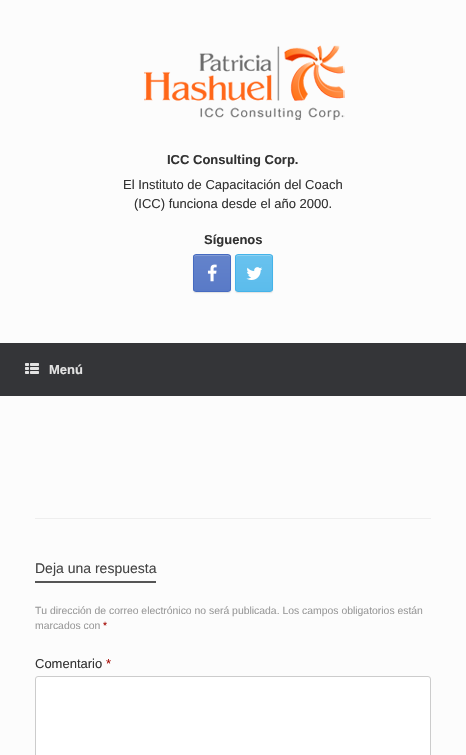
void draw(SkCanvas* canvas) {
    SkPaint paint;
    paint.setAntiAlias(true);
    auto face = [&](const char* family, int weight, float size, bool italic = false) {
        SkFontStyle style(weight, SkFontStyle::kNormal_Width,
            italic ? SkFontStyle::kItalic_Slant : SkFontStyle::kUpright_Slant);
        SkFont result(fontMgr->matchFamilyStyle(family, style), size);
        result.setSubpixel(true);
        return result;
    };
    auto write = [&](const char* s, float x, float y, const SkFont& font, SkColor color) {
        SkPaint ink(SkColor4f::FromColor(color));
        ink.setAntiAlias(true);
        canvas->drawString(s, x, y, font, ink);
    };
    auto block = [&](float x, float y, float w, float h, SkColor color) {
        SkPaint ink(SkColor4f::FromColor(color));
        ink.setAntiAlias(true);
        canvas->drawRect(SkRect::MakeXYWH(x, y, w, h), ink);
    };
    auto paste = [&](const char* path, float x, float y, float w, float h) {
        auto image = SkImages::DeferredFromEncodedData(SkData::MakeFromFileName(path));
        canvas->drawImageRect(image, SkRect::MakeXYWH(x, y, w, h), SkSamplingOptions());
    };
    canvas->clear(SkColorSetRGB(252, 252, 252));
    paste("pic1.png", 144, 45, 201, 75);
    auto kFont1 = face("Liberation Sans", 700, 13);
    write("ICC Consulting Corp.", 167, 164, kFont1, SkColorSetRGB(51, 51, 51));
    auto kFont2 = face("Liberation Sans", 400, 13);
    write("El Instituto de Capacitación del Coach", 123, 189, kFont2, SkColorSetRGB(51, 51, 51));
    write("(ICC) funciona desde el año 2000.", 134, 208, kFont2, SkColorSetRGB(51, 51, 51));
    write("Síguenos", 204, 244, kFont1, SkColorSetRGB(51, 51, 51));
    paint.setColor(SkColorSetARGB(26, 0, 0, 0));
    paint.setMaskFilter(SkMaskFilter::MakeBlur(kNormal_SkBlurStyle, 0.5f));
    canvas->drawRoundRect(SkRect::MakeXYWH(193, 255, 38, 38), 3, 3, paint);
    paint.setMaskFilter(nullptr);
    canvas->save();
    canvas->clipPath(SkPathBuilder().moveTo(196, 254).lineTo(228, 254).cubicTo(229.5f, 254, 231, 255.5f, 231, 257).lineTo(231, 289).cubicTo(231, 290.5f, 229.5f, 292, 228, 292).lineTo(196, 292).cubicTo(194.5f, 292, 193, 290.5f, 193, 289).lineTo(193, 257).cubicTo(193, 255.5f, 194.5f, 254, 196, 254).close().detach(), true);
    {
        const SkColor colors[] = {SkColorSetRGB(89, 122, 199), SkColorSetRGB(100, 131, 203)};
        const float stops[] = {0, 1};
        const SkPoint ends[] = {{194, 291}, {194, 255}};
        paint.setShader(SkGradientShader::MakeLinear(ends, colors, stops, 2, SkTileMode::kClamp));
        paint.setAlpha(255);
    }
    canvas->drawRect(SkRect::MakeXYWH(193, 255, 38, 36), paint);
    canvas->restore();
    paint.setShader(nullptr);
    paint.setColor(SkColorSetRGB(131, 156, 213));
    canvas->drawPath(SkPathBuilder().moveTo(196, 256).lineTo(228, 256).cubicTo(229, 256, 230, 257, 230, 258).cubicTo(230, 253.5f, 226.5f, 255, 222.5f, 255).lineTo(201.5f, 255).cubicTo(197.5f, 255, 194, 253.5f, 194, 258).cubicTo(194, 257, 195, 256, 196, 256).close().detach(), paint);
    paint.setStyle(SkPaint::kStroke_Style);
    paint.setStrokeWidth(1);
    paint.setColor(SkColorSetRGB(70, 107, 193));
    canvas->drawRoundRect(SkRect::MakeXYWH(193.5f, 254.5f, 37, 37), 2.5f, 2.5f, paint);
    paste("pic2.png", 207, 264, 10, 18);
    paint.setStyle(SkPaint::kFill_Style);
    paint.setColor(SkColorSetARGB(26, 0, 0, 0));
    paint.setMaskFilter(SkMaskFilter::MakeBlur(kNormal_SkBlurStyle, 0.5f));
    canvas->drawRoundRect(SkRect::MakeXYWH(235, 255, 38, 38), 3, 3, paint);
    paint.setMaskFilter(nullptr);
    canvas->save();
    canvas->clipPath(SkPathBuilder().moveTo(238, 254).lineTo(270, 254).cubicTo(271.5f, 254, 273, 255.5f, 273, 257).lineTo(273, 289).cubicTo(273, 290.5f, 271.5f, 292, 270, 292).lineTo(238, 292).cubicTo(236.5f, 292, 235, 290.5f, 235, 289).lineTo(235, 257).cubicTo(235, 255.5f, 236.5f, 254, 238, 254).close().detach(), true);
    {
        const SkColor colors[] = {SkColorSetRGB(91, 188, 236), SkColorSetRGB(105, 194, 238)};
        const float stops[] = {0, 1};
        const SkPoint ends[] = {{236, 291}, {236, 255}};
        paint.setShader(SkGradientShader::MakeLinear(ends, colors, stops, 2, SkTileMode::kClamp));
        paint.setAlpha(255);
    }
    canvas->drawRect(SkRect::MakeXYWH(235, 255, 38, 36), paint);
    canvas->restore();
    paint.setShader(nullptr);
    paint.setColor(SkColorSetRGB(142, 209, 242));
    canvas->drawPath(SkPathBuilder().moveTo(238, 256).lineTo(270, 256).cubicTo(271, 256, 272, 257, 272, 258).cubicTo(272, 253.5f, 268.5f, 255, 264.5f, 255).lineTo(243.5f, 255).cubicTo(239.5f, 255, 236, 253.5f, 236, 258).cubicTo(236, 257, 237, 256, 238, 256).close().detach(), paint);
    paint.setStyle(SkPaint::kStroke_Style);
    paint.setColor(SkColorSetRGB(68, 179, 233));
    canvas->drawRoundRect(SkRect::MakeXYWH(235.5f, 254.5f, 37, 37), 2.5f, 2.5f, paint);
    paste("pic3.png", 246, 267, 17, 13);
    block(0, 343, 466, 53, SkColorSetRGB(52, 53, 56));
    paste("pic4.png", 25, 363, 14, 11);
    write("Menú", 49, 374, kFont1, SkColorSetRGB(226, 226, 226));
    block(35, 518, 396, 1, SkColorSetRGB(238, 238, 238));
    block(35, 581, 121, 2, SkColorSetRGB(85, 85, 85));
    auto kFont3 = face("Liberation Sans", 400, 14);
    write("Deja una respuesta", 35, 573, kFont3, SkColorSetRGB(68, 68, 68));
    auto kFont4 = face("Liberation Sans", 400, 10.4f);
    write("Tu dirección de correo electrónico no será publicada. Los campos obligatorios están", 35, 614, kFont4, SkColorSetRGB(153, 153, 153));
    write("marcados con", 35, 629, kFont4, SkColorSetRGB(153, 153, 153));
    write("*", 103, 629, kFont4, SkColorSetRGB(164, 8, 2));
    write("Comentario", 35, 668, kFont2, SkColorSetRGB(51, 51, 51));
    write("*", 106, 668, kFont2, SkColorSetRGB(164, 8, 2));
    paint.setStyle(SkPaint::kFill_Style);
    paint.setColor(SK_ColorWHITE);
    canvas->drawRoundRect(SkRect::MakeXYWH(35.5f, 676.5f, 395, 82), 2.5f, 2.5f, paint);
    paint.setStyle(SkPaint::kStroke_Style);
    paint.setColor(SkColorSetRGB(204, 204, 204));
    canvas->drawRoundRect(SkRect::MakeXYWH(35.5f, 676.5f, 395, 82), 2.5f, 2.5f, paint);
}
